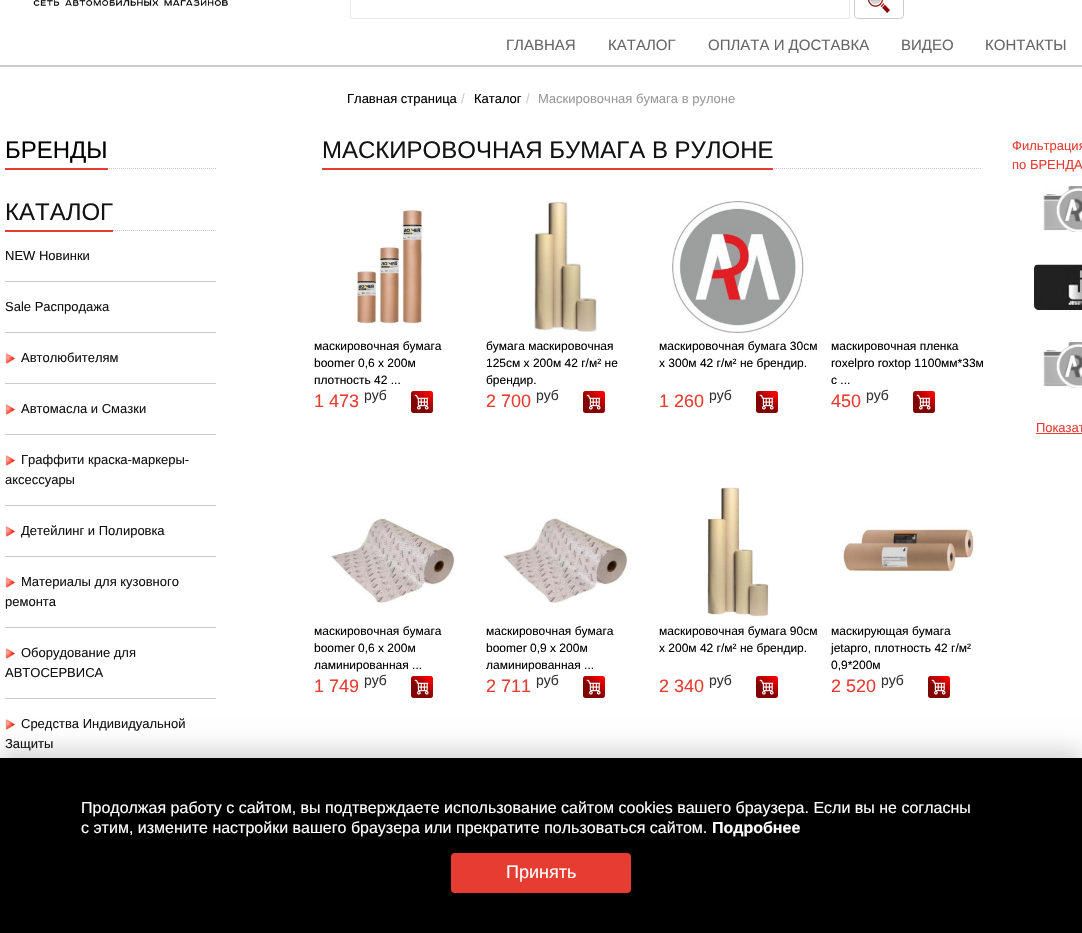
void draw(SkCanvas* canvas) {
    SkPaint paint;
    paint.setAntiAlias(true);
    auto face = [&](const char* family, int weight, float size, bool italic = false) {
        SkFontStyle style(weight, SkFontStyle::kNormal_Width,
            italic ? SkFontStyle::kItalic_Slant : SkFontStyle::kUpright_Slant);
        SkFont result(fontMgr->matchFamilyStyle(family, style), size);
        result.setSubpixel(true);
        return result;
    };
    auto write = [&](const char* s, float x, float y, const SkFont& font, SkColor color) {
        SkPaint ink(SkColor4f::FromColor(color));
        ink.setAntiAlias(true);
        canvas->drawString(s, x, y, font, ink);
    };
    auto block = [&](float x, float y, float w, float h, SkColor color) {
        SkPaint ink(SkColor4f::FromColor(color));
        ink.setAntiAlias(true);
        canvas->drawRect(SkRect::MakeXYWH(x, y, w, h), ink);
    };
    auto card = [&](float x, float y, float w, float h, float radius, SkColor color) {
        SkPaint ink(SkColor4f::FromColor(color));
        ink.setAntiAlias(true);
        canvas->drawRoundRect(SkRect::MakeXYWH(x, y, w, h), radius, radius, ink);
    };
    auto paste = [&](const char* path, float x, float y, float w, float h) {
        auto image = SkImages::DeferredFromEncodedData(SkData::MakeFromFileName(path));
        canvas->drawImageRect(image, SkRect::MakeXYWH(x, y, w, h), SkSamplingOptions());
    };
    canvas->clear(SK_ColorWHITE);
    block(0, 65, 1082, 2, SkColorSetRGB(204, 204, 204));
    paste("pic1.png", 33, 0, 195, 6);
    paint.setStyle(SkPaint::kStroke_Style);
    paint.setStrokeWidth(1);
    paint.setColor(SkColorSetRGB(235, 232, 234));
    canvas->drawRoundRect(SkRect::MakeXYWH(350.5f, -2.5f, 499, 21), 1.5f, 1.5f, paint);
    paste("pic2.png", 868, 0, 22, 13);
    paint.setColor(SkColorSetRGB(204, 204, 204));
    canvas->drawRoundRect(SkRect::MakeXYWH(854.5f, -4.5f, 49, 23), 3.5f, 3.5f, paint);
    auto kFont1 = face("Liberation Sans", 400, 15);
    write("ГЛАВНАЯ", 506, 50, kFont1, SkColorSetRGB(102, 102, 102));
    write("КАТАЛОГ", 608, 50, kFont1, SkColorSetRGB(102, 102, 102));
    write("ОПЛАТА И ДОСТАВКА", 708, 50, kFont1, SkColorSetRGB(102, 102, 102));
    write("ВИДЕО", 901, 50, kFont1, SkColorSetRGB(102, 102, 102));
    write("КОНТАКТЫ", 985, 50, kFont1, SkColorSetRGB(102, 102, 102));
    auto kFont2 = face("Liberation Sans", 400, 13);
    write("Главная страница", 347, 103, kFont2, SK_ColorBLACK);
    write("/", 461, 103, kFont2, SkColorSetRGB(204, 204, 204));
    write("Каталог", 474, 103, kFont2, SK_ColorBLACK);
    write("/", 526, 103, kFont2, SkColorSetRGB(204, 204, 204));
    write("Маскировочная бумага в рулоне", 538, 103, kFont2, SkColorSetRGB(153, 153, 153));
    paint.setColor(SkColorSetRGB(203, 205, 203));
    paint.setPathEffect(SkDashPathEffect::Make({{1, 1}}, 0));
    canvas->drawPath(SkPathBuilder().moveTo(5, 168.5f).lineTo(216, 168.5f).detach(), paint);
    paint.setPathEffect(nullptr);
    block(5, 168, 103, 2, SkColorSetRGB(231, 60, 49));
    auto kFont3 = face("Liberation Sans", 400, 24);
    write("БРЕНДЫ", 5, 158, kFont3, SK_ColorBLACK);
    paint.setPathEffect(SkDashPathEffect::Make({{1, 1}}, 0));
    canvas->drawPath(SkPathBuilder().moveTo(5, 230.5f).lineTo(216, 230.5f).detach(), paint);
    paint.setPathEffect(nullptr);
    block(5, 230, 108, 2, SkColorSetRGB(231, 60, 49));
    write("КАТАЛОГ", 5, 220, kFont3, SkColorSetRGB(19, 19, 19));
    block(5, 281, 211, 1, SkColorSetRGB(203, 205, 203));
    write("NEW Новинки", 5, 260, kFont2, SkColorSetRGB(19, 19, 19));
    block(5, 332, 211, 1, SkColorSetRGB(203, 205, 203));
    write("Sale Распродажа", 5, 311, kFont2, SkColorSetRGB(19, 19, 19));
    block(5, 383, 211, 1, SkColorSetRGB(203, 205, 203));
    paste("pic3.png", 5, 353, 11, 11);
    write("Автолюбителям", 21, 362, kFont2, SkColorSetRGB(19, 19, 19));
    block(5, 434, 211, 1, SkColorSetRGB(203, 205, 203));
    paste("pic3.png", 5, 404, 11, 11);
    write("Автомасла и Смазки", 21, 413, kFont2, SkColorSetRGB(19, 19, 19));
    block(5, 505, 211, 1, SkColorSetRGB(203, 205, 203));
    paste("pic3.png", 5, 455, 11, 11);
    write("Граффити краска-маркеры-", 21, 464, kFont2, SkColorSetRGB(19, 19, 19));
    write("аксессуары", 5, 484, kFont2, SkColorSetRGB(19, 19, 19));
    block(5, 556, 211, 1, SkColorSetRGB(203, 205, 203));
    paste("pic3.png", 5, 526, 11, 11);
    write("Детейлинг и Полировка", 21, 535, kFont2, SkColorSetRGB(19, 19, 19));
    block(5, 627, 211, 1, SkColorSetRGB(203, 205, 203));
    paste("pic3.png", 5, 577, 11, 11);
    write("Материалы для кузовного", 21, 586, kFont2, SkColorSetRGB(19, 19, 19));
    write("ремонта", 5, 606, kFont2, SkColorSetRGB(19, 19, 19));
    block(5, 698, 211, 1, SkColorSetRGB(203, 205, 203));
    paste("pic3.png", 5, 648, 11, 11);
    write("Оборудование для", 21, 657, kFont2, SkColorSetRGB(19, 19, 19));
    write("АВТОСЕРВИСА", 5, 677, kFont2, SkColorSetRGB(19, 19, 19));
    paste("pic3.png", 5, 719, 11, 11);
    write("Средства Индивидуальной", 21, 728, kFont2, SkColorSetRGB(19, 19, 19));
    write("Защиты", 5, 748, kFont2, SkColorSetRGB(19, 19, 19));
    paint.setPathEffect(SkDashPathEffect::Make({{1, 1}}, 0));
    canvas->drawPath(SkPathBuilder().moveTo(322, 168.5f).lineTo(982, 168.5f).detach(), paint);
    paint.setPathEffect(nullptr);
    block(322, 168, 451, 2, SkColorSetRGB(231, 60, 49));
    write("МАСКИРОВОЧНАЯ БУМАГА В РУЛОНЕ", 322, 158, kFont3, SkColorSetRGB(19, 19, 19));
    paste("pic4.png", 356, 210, 68, 118);
    auto kFont4 = face("Liberation Sans", 400, 12);
    write("маскировочная бумага", 314, 350, kFont4, SK_ColorBLACK);
    write("boomer 0,6 х 200м", 314, 367, kFont4, SK_ColorBLACK);
    write("плотность 42 ...", 314, 384, kFont4, SK_ColorBLACK);
    auto kFont5 = face("Liberation Sans", 400, 18);
    write("1 473", 314, 407, kFont5, SkColorSetRGB(231, 60, 49));
    auto kFont6 = face("Liberation Sans", 400, 14);
    write("руб", 364, 400, kFont6, SkColorSetRGB(51, 51, 51));
    paste("pic5.png", 411, 391, 22, 22);
    paste("pic6.png", 534, 201, 63, 131);
    write("бумага маскировочная", 486, 350, kFont4, SK_ColorBLACK);
    write("125см х 200м 42 г/м² не", 486, 367, kFont4, SK_ColorBLACK);
    write("брендир.", 486, 384, kFont4, SK_ColorBLACK);
    write("2 700", 486, 407, kFont5, SkColorSetRGB(231, 60, 49));
    write("руб", 536, 400, kFont6, SkColorSetRGB(51, 51, 51));
    paste("pic5.png", 583, 391, 22, 22);
    paste("pic7.png", 672, 201, 132, 132);
    write("маскировочная бумага 30см", 659, 350, kFont4, SK_ColorBLACK);
    write("х 300м 42 г/м² не брендир.", 659, 367, kFont4, SK_ColorBLACK);
    write("1 260", 659, 407, kFont5, SkColorSetRGB(231, 60, 49));
    write("руб", 709, 400, kFont6, SkColorSetRGB(51, 51, 51));
    paste("pic5.png", 756, 391, 22, 22);
    write("маскировочная пленка", 831, 350, kFont4, SK_ColorBLACK);
    write("roxelpro roxtop 1100мм*33м", 831, 367, kFont4, SK_ColorBLACK);
    write("с ...", 831, 384, kFont4, SK_ColorBLACK);
    write("450", 831, 407, kFont5, SkColorSetRGB(231, 60, 49));
    write("руб", 866, 400, kFont6, SkColorSetRGB(51, 51, 51));
    paste("pic5.png", 913, 391, 22, 22);
    paste("pic8.png", 330, 518, 125, 86);
    write("маскировочная бумага", 314, 635, kFont4, SK_ColorBLACK);
    write("boomer 0,6 х 200м", 314, 652, kFont4, SK_ColorBLACK);
    write("ламинированная ...", 314, 669, kFont4, SK_ColorBLACK);
    write("1 749", 314, 692, kFont5, SkColorSetRGB(231, 60, 49));
    write("руб", 364, 685, kFont6, SkColorSetRGB(51, 51, 51));
    paste("pic5.png", 411, 676, 22, 22);
    paste("pic9.png", 502, 518, 126, 86);
    write("маскировочная бумага", 486, 635, kFont4, SK_ColorBLACK);
    write("boomer 0,9 х 200м", 486, 652, kFont4, SK_ColorBLACK);
    write("ламинированная ...", 486, 669, kFont4, SK_ColorBLACK);
    write("2 711", 486, 692, kFont5, SkColorSetRGB(231, 60, 49));
    write("руб", 536, 685, kFont6, SkColorSetRGB(51, 51, 51));
    paste("pic5.png", 583, 676, 22, 22);
    paste("pic10.png", 707, 487, 62, 130);
    write("маскировочная бумага 90см", 659, 635, kFont4, SK_ColorBLACK);
    write("х 200м 42 г/м² не брендир.", 659, 652, kFont4, SK_ColorBLACK);
    write("2 340", 659, 692, kFont5, SkColorSetRGB(231, 60, 49));
    write("руб", 709, 685, kFont6, SkColorSetRGB(51, 51, 51));
    paste("pic5.png", 756, 676, 22, 22);
    paste("pic11.png", 842, 525, 132, 47);
    write("маскирующая бумага", 831, 635, kFont4, SK_ColorBLACK);
    write("jetapro, плотность 42 г/м²", 831, 652, kFont4, SK_ColorBLACK);
    write("0,9*200м", 831, 669, kFont4, SK_ColorBLACK);
    write("2 520", 831, 692, kFont5, SkColorSetRGB(231, 60, 49));
    write("руб", 881, 685, kFont6, SkColorSetRGB(51, 51, 51));
    paste("pic5.png", 928, 676, 22, 22);
    write("Фильтрация", 1012, 150, kFont2, SkColorSetRGB(231, 60, 49));
    write("по БРЕНДА", 1012, 169, kFont2, SkColorSetRGB(231, 60, 49));
    paste("pic12.png", 1043, 186, 39, 46);
    paste("pic13.png", 1034, 264, 48, 46);
    paste("pic12.png", 1043, 342, 39, 46);
    write("Показат", 1036, 432, kFont2, SkColorSetRGB(231, 60, 49));
    block(1036, 433, 46, 1, SkColorSetRGB(231, 60, 49));
    paint.setStyle(SkPaint::kFill_Style);
    paint.setColor(SkColorSetARGB(38, 0, 0, 0));
    paint.setMaskFilter(SkMaskFilter::MakeBlur(kNormal_SkBlurStyle, 10));
    canvas->drawRect(SkRect::MakeXYWH(0, 748, 1082, 175), paint);
    paint.setMaskFilter(nullptr);
    block(0, 758, 1082, 175, SK_ColorBLACK);
    auto kFont7 = face("Liberation Sans", 400, 16);
    write("Продолжая работу с сайтом, вы подтверждаете использование сайтом cookies вашего браузера. Если вы не согласны", 81, 813, kFont7, SK_ColorWHITE);
    write("с этим, измените настройки вашего браузера или прекратите пользоваться сайтом.", 81, 833, kFont7, SK_ColorWHITE);
    auto kFont8 = face("Liberation Sans", 700, 16);
    write("Подробнее", 712, 833, kFont8, SK_ColorWHITE);
    card(451, 853, 180, 40, 4, SkColorSetRGB(231, 60, 49));
    write("Принять", 506, 878, kFont5, SK_ColorWHITE);
}
